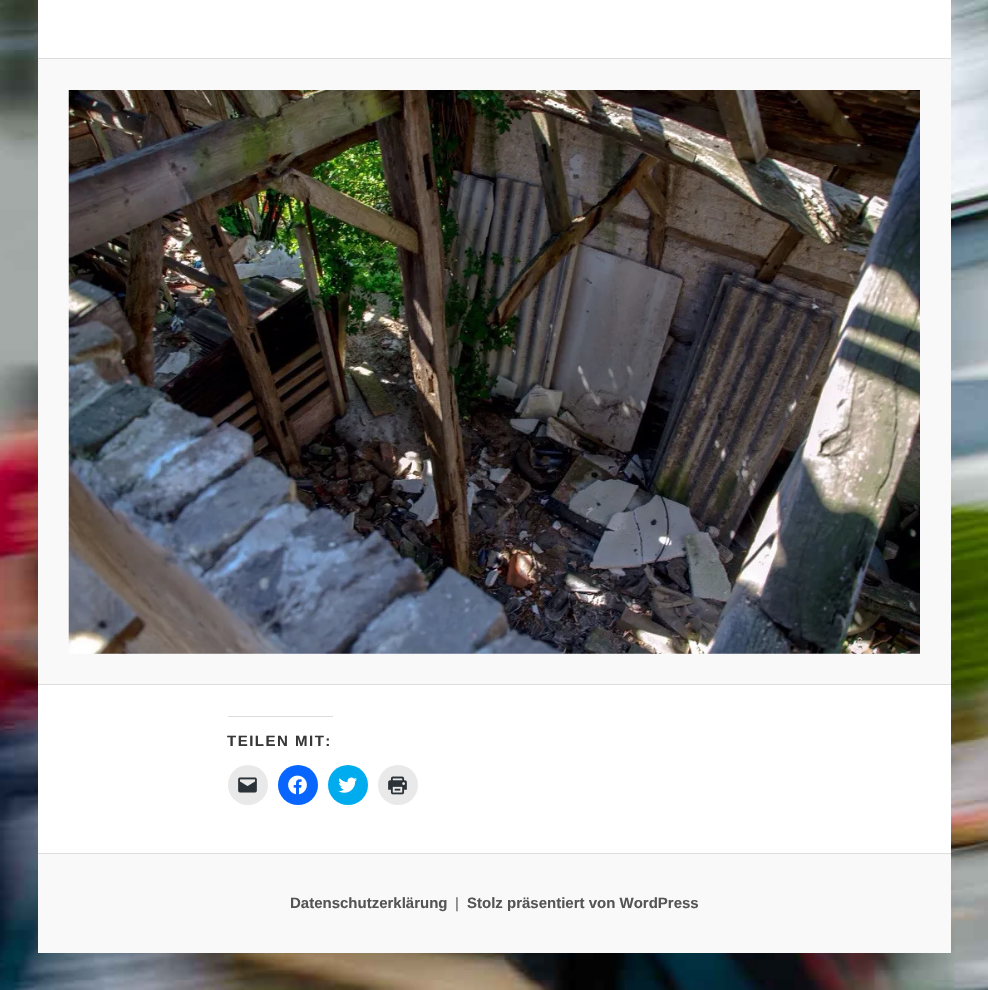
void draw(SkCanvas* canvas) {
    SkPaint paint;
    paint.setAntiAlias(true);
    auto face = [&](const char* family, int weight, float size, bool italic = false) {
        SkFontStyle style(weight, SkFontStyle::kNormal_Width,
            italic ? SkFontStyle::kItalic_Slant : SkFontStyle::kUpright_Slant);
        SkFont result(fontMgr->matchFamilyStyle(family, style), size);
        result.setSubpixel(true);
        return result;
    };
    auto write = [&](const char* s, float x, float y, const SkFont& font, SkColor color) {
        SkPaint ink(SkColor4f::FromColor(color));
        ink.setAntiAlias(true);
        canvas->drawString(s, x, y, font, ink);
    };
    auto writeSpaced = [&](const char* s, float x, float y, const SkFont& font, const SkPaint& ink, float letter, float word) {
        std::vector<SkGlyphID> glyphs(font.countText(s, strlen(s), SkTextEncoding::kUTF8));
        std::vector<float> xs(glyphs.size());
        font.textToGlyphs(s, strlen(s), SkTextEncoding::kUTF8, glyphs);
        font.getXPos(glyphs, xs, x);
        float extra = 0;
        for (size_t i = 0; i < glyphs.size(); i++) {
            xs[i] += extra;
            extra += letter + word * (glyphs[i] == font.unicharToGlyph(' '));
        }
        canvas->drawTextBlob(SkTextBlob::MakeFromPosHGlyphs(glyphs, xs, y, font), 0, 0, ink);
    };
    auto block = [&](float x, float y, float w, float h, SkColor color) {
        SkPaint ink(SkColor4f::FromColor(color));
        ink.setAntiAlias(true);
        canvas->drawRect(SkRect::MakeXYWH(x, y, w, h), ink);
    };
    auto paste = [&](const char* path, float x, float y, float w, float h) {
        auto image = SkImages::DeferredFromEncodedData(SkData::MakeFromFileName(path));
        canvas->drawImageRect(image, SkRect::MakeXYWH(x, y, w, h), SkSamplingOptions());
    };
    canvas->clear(SK_ColorWHITE);
    paste("pic1.png", 0, 0, 988, 990);
    block(38, 0, 913, 853, SK_ColorWHITE);
    block(38, 59, 913, 625, SkColorSetRGB(249, 249, 249));
    block(38, 58, 913, 1, SkColorSetRGB(221, 221, 221));
    block(38, 684, 913, 1, SkColorSetRGB(221, 221, 221));
    paste("pic2.png", 68, 90, 852, 564);
    block(228, 716, 105, 1, SkColorSetRGB(220, 220, 222));
    auto kFont1 = face("Liberation Sans", 700, 15);
    paint.setColor(SkColorSetRGB(55, 55, 55));
    writeSpaced("TEILEN MIT:", 227, 746, kFont1, paint, 1.5f, 0);
    paint.setColor(SkColorSetRGB(233, 233, 233));
    canvas->drawCircle(248, 785, 20, paint);
    paste("pic3.png", 238, 777, 19, 16);
    paint.setColor(SkColorSetRGB(8, 102, 255));
    canvas->drawCircle(298, 785, 20, paint);
    paste("pic4.png", 288, 775, 19, 20);
    paint.setColor(SkColorSetRGB(0, 172, 238));
    canvas->drawCircle(348, 785, 20, paint);
    paste("pic5.png", 338, 777, 19, 16);
    paint.setColor(SkColorSetRGB(233, 233, 233));
    canvas->drawCircle(398, 785, 20, paint);
    paste("pic6.png", 388, 776, 19, 19);
    block(38, 854, 913, 99, SkColorSetRGB(249, 249, 249));
    block(38, 853, 913, 1, SkColorSetRGB(221, 221, 221));
    write("Datenschutzerklärung", 290, 908, kFont1, SkColorSetRGB(85, 85, 85));
    auto kFont2 = face("Liberation Sans", 400, 15);
    write("|", 455, 908, kFont2, SkColorSetRGB(102, 102, 102));
    write("Stolz präsentiert von WordPress", 467, 908, kFont1, SkColorSetRGB(85, 85, 85));
}
